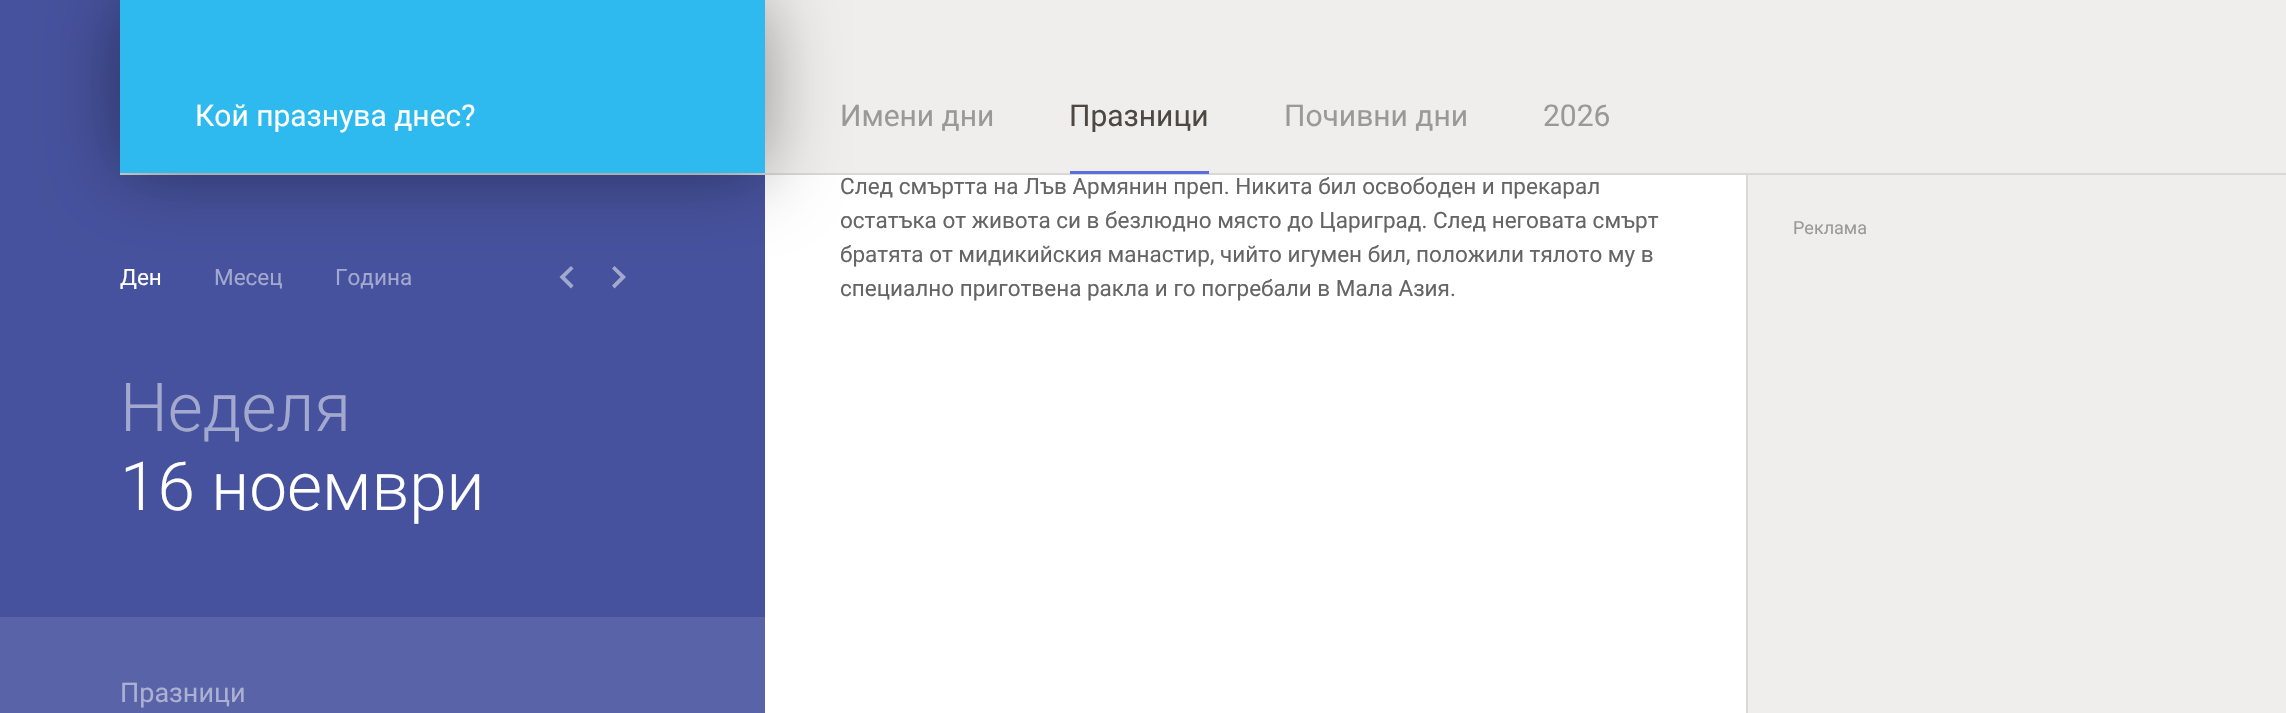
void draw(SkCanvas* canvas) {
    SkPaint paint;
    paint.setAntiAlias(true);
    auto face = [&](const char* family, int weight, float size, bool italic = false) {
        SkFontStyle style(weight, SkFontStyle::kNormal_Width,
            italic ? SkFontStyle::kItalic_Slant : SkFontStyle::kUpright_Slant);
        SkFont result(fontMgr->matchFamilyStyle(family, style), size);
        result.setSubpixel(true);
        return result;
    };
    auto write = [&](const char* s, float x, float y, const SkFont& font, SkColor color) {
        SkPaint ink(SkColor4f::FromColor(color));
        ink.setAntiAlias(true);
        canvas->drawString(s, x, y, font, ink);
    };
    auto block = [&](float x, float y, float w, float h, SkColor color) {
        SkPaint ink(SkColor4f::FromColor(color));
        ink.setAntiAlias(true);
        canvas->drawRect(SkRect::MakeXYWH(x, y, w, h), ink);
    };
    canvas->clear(SK_ColorWHITE);
    block(765, 0, 1521, 173, SkColorSetRGB(239, 238, 236));
    block(1746, 173, 2, 540, SkColorSetRGB(216, 216, 215));
    block(0, 0, 765, 617, SkColorSetRGB(70, 82, 157));
    block(120, 173, 2166, 2, SkColorSetRGB(216, 216, 215));
    paint.setColor(SkColorSetRGB(163, 169, 206));
    canvas->drawPath(SkPathBuilder().moveTo(573.5f, 268.5f).lineTo(565, 277).lineTo(573.5f, 285.5f).lineTo(571, 288.5f).lineTo(559.5f, 277).lineTo(571, 266).close().detach(), paint);
    canvas->drawPath(SkPathBuilder().moveTo(614.5f, 266).lineTo(626, 277).lineTo(614.5f, 288.5f).lineTo(612, 285.5f).lineTo(620.5f, 277).lineTo(612, 268.5f).close().detach(), paint);
    paint.setColor(SkColorSetARGB(102, 0, 0, 0));
    paint.setMaskFilter(SkMaskFilter::MakeBlur(kNormal_SkBlurStyle, 37.5f));
    canvas->drawRect(SkRect::MakeXYWH(120, 0, 645, 173), paint);
    paint.setMaskFilter(nullptr);
    block(120, 0, 645, 173, SkColorSetRGB(46, 186, 238));
    auto kFont1 = face("Roboto", 400, 30);
    write("Кой празнува днес?", 195, 126, kFont1, SK_ColorWHITE);
    write("Имени дни", 840, 126, kFont1, SkColorSetRGB(155, 153, 151));
    write("Празници", 1069, 126, kFont1, SkColorSetRGB(77, 72, 67));
    block(1070, 171, 139, 3, SkColorSetRGB(91, 110, 224));
    write("Почивни дни", 1284, 126, kFont1, SkColorSetRGB(155, 153, 151));
    write("2026", 1543, 126, kFont1, SkColorSetRGB(155, 153, 151));
    auto kFont2 = face("Roboto", 400, 22.5f);
    write("След смъртта на Лъв Армянин преп. Никита бил освободен и прекарал", 840, 194, kFont2, SkColorSetRGB(101, 101, 101));
    write("остатъка от живота си в безлюдно място до Цариград. След неговата смърт", 840, 228, kFont2, SkColorSetRGB(101, 101, 101));
    write("братята от мидикийския манастир, чийто игумен бил, положили тялото му в", 840, 262, kFont2, SkColorSetRGB(101, 101, 101));
    write("специално приготвена ракла и го погребали в Мала Азия.", 840, 296, kFont2, SkColorSetRGB(101, 101, 101));
    block(1748, 175, 538, 538, SkColorSetRGB(239, 238, 236));
    auto kFont3 = face("Roboto", 400, 18);
    write("Реклама", 1793, 234, kFont3, SkColorSetRGB(155, 153, 151));
    write("Ден", 120, 285, kFont2, SK_ColorWHITE);
    write("Месец", 214, 285, kFont2, SkColorSetRGB(163, 169, 206));
    write("Година", 335, 285, kFont2, SkColorSetRGB(163, 169, 206));
    auto kFont4 = face("Roboto", 300, 67.5f);
    write("Неделя", 120, 431, kFont4, SkColorSetRGB(163, 169, 206));
    write("16 ноември", 120, 510, kFont4, SK_ColorWHITE);
    block(0, 617, 765, 96, SkColorSetRGB(89, 99, 167));
    auto kFont5 = face("Roboto", 400, 27);
    write("Празници", 120, 702, kFont5, SkColorSetRGB(172, 177, 211));
}
